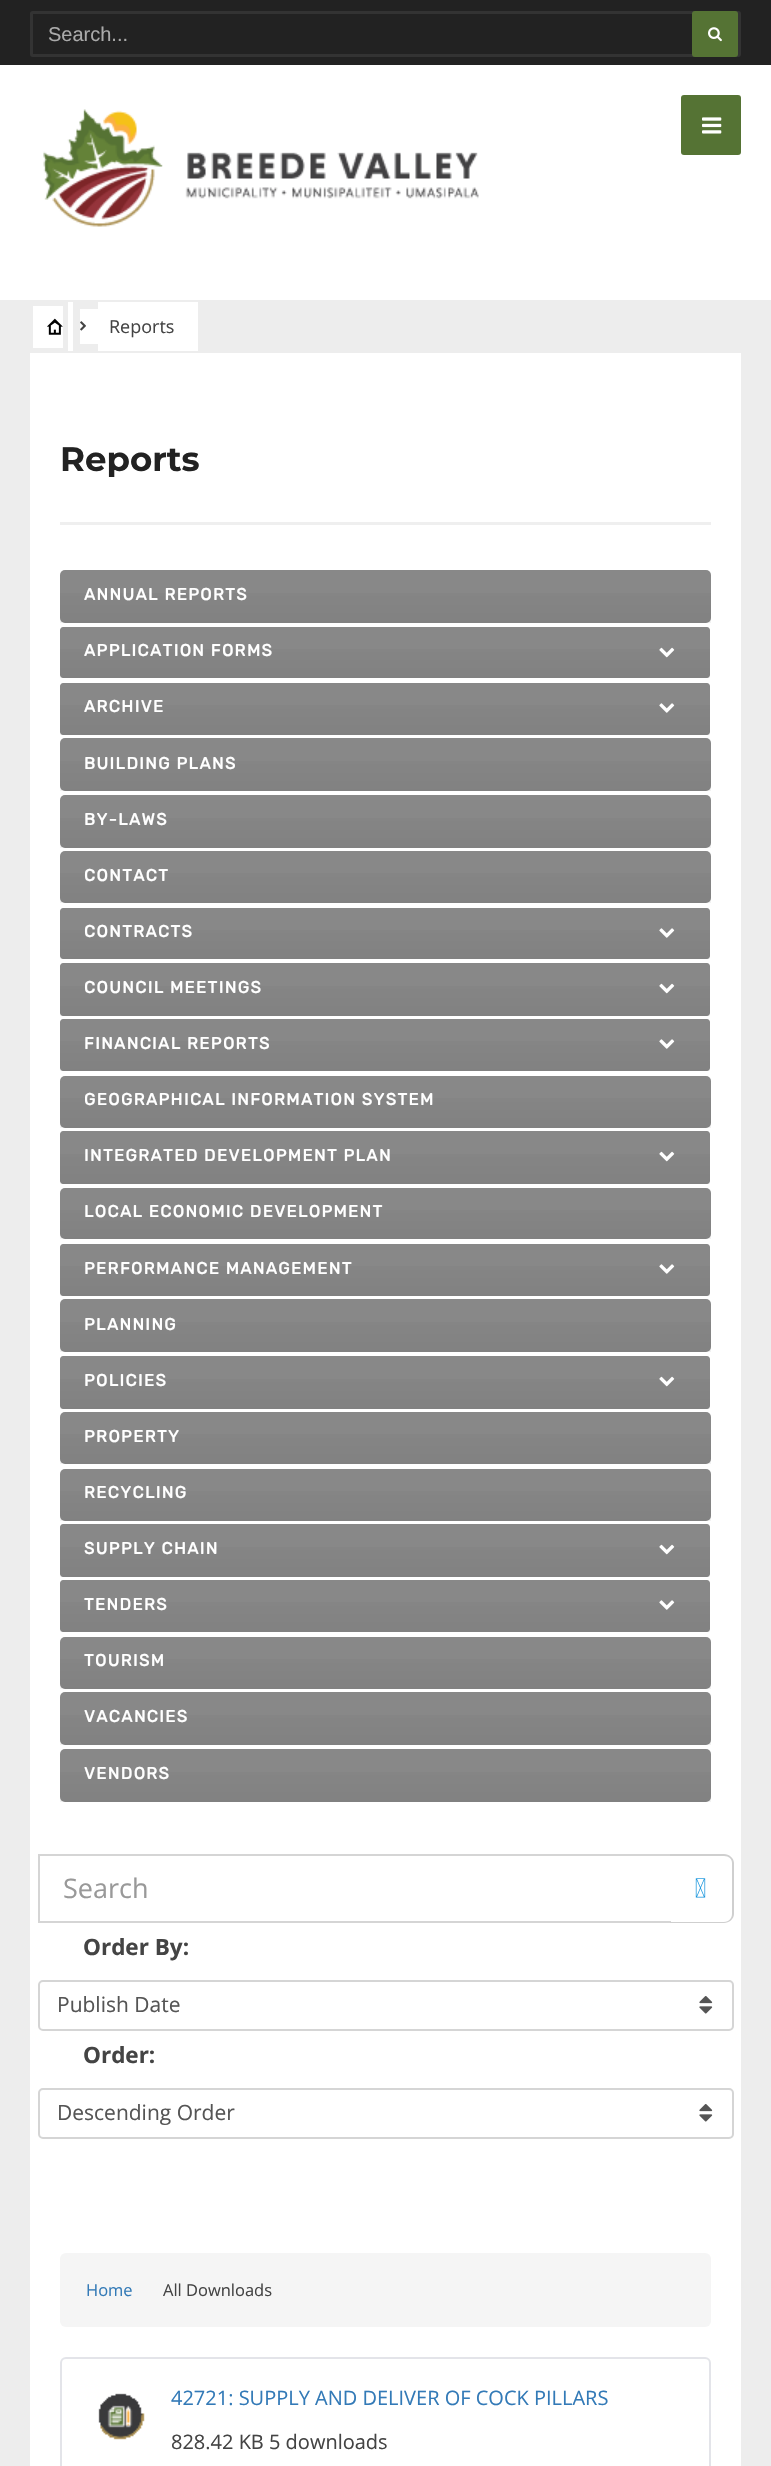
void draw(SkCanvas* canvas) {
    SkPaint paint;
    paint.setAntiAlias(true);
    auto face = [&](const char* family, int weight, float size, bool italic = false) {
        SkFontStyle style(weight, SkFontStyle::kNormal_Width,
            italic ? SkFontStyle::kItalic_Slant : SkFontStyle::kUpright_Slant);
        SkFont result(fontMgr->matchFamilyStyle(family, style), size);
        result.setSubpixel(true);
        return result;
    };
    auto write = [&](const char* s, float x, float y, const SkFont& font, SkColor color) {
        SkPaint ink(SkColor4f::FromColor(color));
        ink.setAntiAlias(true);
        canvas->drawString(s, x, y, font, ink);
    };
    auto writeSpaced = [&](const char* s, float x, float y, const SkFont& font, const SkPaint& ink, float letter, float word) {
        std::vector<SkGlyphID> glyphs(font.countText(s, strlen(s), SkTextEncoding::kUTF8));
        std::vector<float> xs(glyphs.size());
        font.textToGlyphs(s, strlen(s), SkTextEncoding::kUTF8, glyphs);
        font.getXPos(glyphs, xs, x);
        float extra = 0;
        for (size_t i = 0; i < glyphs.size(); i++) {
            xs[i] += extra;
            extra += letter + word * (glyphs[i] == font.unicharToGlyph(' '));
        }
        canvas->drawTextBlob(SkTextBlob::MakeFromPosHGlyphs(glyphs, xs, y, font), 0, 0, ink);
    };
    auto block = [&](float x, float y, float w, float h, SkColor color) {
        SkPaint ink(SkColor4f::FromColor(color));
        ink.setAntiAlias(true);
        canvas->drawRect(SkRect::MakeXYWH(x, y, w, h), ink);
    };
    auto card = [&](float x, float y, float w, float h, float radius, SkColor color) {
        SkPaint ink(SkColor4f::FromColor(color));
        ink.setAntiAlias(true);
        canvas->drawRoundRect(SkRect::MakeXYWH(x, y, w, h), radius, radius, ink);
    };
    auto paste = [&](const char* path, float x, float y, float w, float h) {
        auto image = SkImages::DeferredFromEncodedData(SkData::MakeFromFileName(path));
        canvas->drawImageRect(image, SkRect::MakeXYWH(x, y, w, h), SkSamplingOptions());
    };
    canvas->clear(SkColorSetRGB(237, 237, 237));
    block(0, 0, 771, 65, SkColorSetRGB(34, 34, 34));
    paint.setStyle(SkPaint::kStroke_Style);
    paint.setStrokeWidth(3);
    paint.setColor(SkColorSetRGB(51, 51, 51));
    canvas->drawRoundRect(SkRect::MakeXYWH(31.5f, 12.5f, 708, 43), 1.5f, 1.5f, paint);
    auto kFont1 = face("Liberation Sans", 400, 20);
    write("Search...", 48, 41, kFont1, SkColorSetRGB(170, 170, 170));
    card(692, 11, 46, 46, 3, SkColorSetRGB(85, 115, 52));
    paste("pic1.png", 708, 27, 14, 15);
    block(0, 65, 771, 235, SK_ColorWHITE);
    paste("pic2.png", 43, 109, 436, 118);
    card(681, 95, 60, 60, 3, SkColorSetRGB(85, 115, 52));
    paste("pic3.png", 702, 117, 20, 17);
    block(33, 306, 30, 42, SK_ColorWHITE);
    block(68, 302, 5, 49, SK_ColorWHITE);
    block(80, 309, 18, 35, SK_ColorWHITE);
    paste("pic4.png", 47, 318, 16, 17);
    paste("pic5.png", 80, 321, 6, 10);
    block(98, 302, 100, 49, SK_ColorWHITE);
    auto kFont2 = face("Open Sans", 400, 18);
    write("Reports", 109, 333, kFont2, SkColorSetRGB(68, 68, 68));
    block(30, 353, 711, 2113, SK_ColorWHITE);
    canvas->save();
    canvas->clipRect(SkRect::MakeXYWH(60, 443, 651, 34));
    auto kFont3 = face("Montserrat", 700, 34);
    write("Reports", 60, 471, kFont3, SkColorSetRGB(34, 34, 34));
    canvas->restore();
    block(60, 522, 651, 3, SkColorSetRGB(239, 239, 239));
    card(60, 570, 651, 53, 5, SkColorSetRGB(136, 136, 136));
    paint.setStyle(SkPaint::kFill_Style);
    {
        const SkColor colors[] = {SkColorSetARGB(0, 0, 0, 0), SkColorSetARGB(13, 0, 0, 0)};
        const float stops[] = {0, 1};
        const SkPoint ends[] = {{386, 570}, {386, 623}};
        paint.setShader(SkGradientShader::MakeLinear(ends, colors, stops, 2, SkTileMode::kClamp));
        paint.setAlpha(255);
    }
    canvas->drawRect(SkRect::MakeXYWH(60, 593, 651, 30), paint);
    auto kFont4 = face("Rubik", 700, 16.5f);
    paint.setShader(nullptr);
    paint.setColor(SK_ColorWHITE);
    writeSpaced("ANNUAL REPORTS", 84, 600, kFont4, paint, 1.5f, 0);
    paint.setColor(SkColorSetRGB(136, 136, 136));
    canvas->drawPath(SkPathBuilder().moveTo(63, 627).lineTo(636, 627).lineTo(636, 678).lineTo(63, 678).cubicTo(61.5f, 678, 60, 676.5f, 60, 675).lineTo(60, 630).cubicTo(60, 628.5f, 61.5f, 627, 63, 627).close().detach(), paint);
    {
        const SkColor colors[] = {SkColorSetARGB(0, 0, 0, 0), SkColorSetARGB(13, 0, 0, 0)};
        const float stops[] = {0, 1};
        const SkPoint ends[] = {{348, 627}, {348, 678}};
        paint.setShader(SkGradientShader::MakeLinear(ends, colors, stops, 2, SkTileMode::kClamp));
        paint.setAlpha(255);
    }
    canvas->drawRect(SkRect::MakeXYWH(60, 649, 575, 29), paint);
    paint.setShader(nullptr);
    paint.setColor(SK_ColorWHITE);
    writeSpaced("APPLICATION FORMS", 84, 656, kFont4, paint, 1.5f, 0);
    paint.setColor(SkColorSetRGB(136, 136, 136));
    canvas->drawPath(SkPathBuilder().moveTo(635, 627).lineTo(707, 627).cubicTo(708.5f, 627, 710, 628.5f, 710, 630).lineTo(710, 675).cubicTo(710, 676.5f, 708.5f, 678, 707, 678).lineTo(635, 678).close().detach(), paint);
    {
        const SkColor colors[] = {SkColorSetARGB(0, 0, 0, 0), SkColorSetARGB(13, 0, 0, 0)};
        const float stops[] = {0, 1};
        const SkPoint ends[] = {{672, 627}, {672, 678}};
        paint.setShader(SkGradientShader::MakeLinear(ends, colors, stops, 2, SkTileMode::kClamp));
        paint.setAlpha(255);
    }
    canvas->drawRect(SkRect::MakeXYWH(635, 649, 75, 29), paint);
    paste("pic6.png", 659, 647, 16, 11);
    paint.setShader(nullptr);
    paint.setColor(SkColorSetRGB(136, 136, 136));
    canvas->drawPath(SkPathBuilder().moveTo(63, 683).lineTo(636, 683).lineTo(636, 735).lineTo(63, 735).cubicTo(61.5f, 735, 60, 733.5f, 60, 732).lineTo(60, 686).cubicTo(60, 684.5f, 61.5f, 683, 63, 683).close().detach(), paint);
    {
        const SkColor colors[] = {SkColorSetARGB(0, 0, 0, 0), SkColorSetARGB(13, 0, 0, 0)};
        const float stops[] = {0, 1};
        const SkPoint ends[] = {{348, 683}, {348, 735}};
        paint.setShader(SkGradientShader::MakeLinear(ends, colors, stops, 2, SkTileMode::kClamp));
        paint.setAlpha(255);
    }
    canvas->drawRect(SkRect::MakeXYWH(60, 705, 575, 30), paint);
    paint.setShader(nullptr);
    paint.setColor(SK_ColorWHITE);
    writeSpaced("ARCHIVE", 84, 712, kFont4, paint, 1.5f, 0);
    paint.setColor(SkColorSetRGB(136, 136, 136));
    canvas->drawPath(SkPathBuilder().moveTo(635, 683).lineTo(707, 683).cubicTo(708.5f, 683, 710, 684.5f, 710, 686).lineTo(710, 732).cubicTo(710, 733.5f, 708.5f, 735, 707, 735).lineTo(635, 735).close().detach(), paint);
    {
        const SkColor colors[] = {SkColorSetARGB(0, 0, 0, 0), SkColorSetARGB(13, 0, 0, 0)};
        const float stops[] = {0, 1};
        const SkPoint ends[] = {{672, 683}, {672, 735}};
        paint.setShader(SkGradientShader::MakeLinear(ends, colors, stops, 2, SkTileMode::kClamp));
        paint.setAlpha(255);
    }
    canvas->drawRect(SkRect::MakeXYWH(635, 705, 75, 30), paint);
    paste("pic7.png", 659, 703, 16, 10);
    card(60, 738, 651, 53, 5, SkColorSetRGB(136, 136, 136));
    {
        const SkColor colors[] = {SkColorSetARGB(0, 0, 0, 0), SkColorSetARGB(13, 0, 0, 0)};
        const float stops[] = {0, 1};
        const SkPoint ends[] = {{386, 738}, {386, 791}};
        paint.setShader(SkGradientShader::MakeLinear(ends, colors, stops, 2, SkTileMode::kClamp));
        paint.setAlpha(255);
    }
    canvas->drawRect(SkRect::MakeXYWH(60, 761, 651, 30), paint);
    paint.setShader(nullptr);
    paint.setColor(SK_ColorWHITE);
    writeSpaced("BUILDING PLANS", 84, 769, kFont4, paint, 1.5f, 0);
    card(60, 795, 651, 53, 5, SkColorSetRGB(136, 136, 136));
    {
        const SkColor colors[] = {SkColorSetARGB(0, 0, 0, 0), SkColorSetARGB(13, 0, 0, 0)};
        const float stops[] = {0, 1};
        const SkPoint ends[] = {{386, 795}, {386, 848}};
        paint.setShader(SkGradientShader::MakeLinear(ends, colors, stops, 2, SkTileMode::kClamp));
        paint.setAlpha(255);
    }
    canvas->drawRect(SkRect::MakeXYWH(60, 818, 651, 30), paint);
    paint.setShader(nullptr);
    paint.setColor(SK_ColorWHITE);
    writeSpaced("BY-LAWS", 84, 825, kFont4, paint, 1.5f, 0);
    card(60, 851, 651, 52, 5, SkColorSetRGB(136, 136, 136));
    {
        const SkColor colors[] = {SkColorSetARGB(0, 0, 0, 0), SkColorSetARGB(13, 0, 0, 0)};
        const float stops[] = {0, 1};
        const SkPoint ends[] = {{386, 851}, {386, 903}};
        paint.setShader(SkGradientShader::MakeLinear(ends, colors, stops, 2, SkTileMode::kClamp));
        paint.setAlpha(255);
    }
    canvas->drawRect(SkRect::MakeXYWH(60, 873, 651, 30), paint);
    paint.setShader(nullptr);
    paint.setColor(SK_ColorWHITE);
    writeSpaced("CONTACT", 84, 881, kFont4, paint, 1.5f, 0);
    paint.setColor(SkColorSetRGB(136, 136, 136));
    canvas->drawPath(SkPathBuilder().moveTo(63, 908).lineTo(636, 908).lineTo(636, 959).lineTo(63, 959).cubicTo(61.5f, 959, 60, 957.5f, 60, 956).lineTo(60, 911).cubicTo(60, 909.5f, 61.5f, 908, 63, 908).close().detach(), paint);
    {
        const SkColor colors[] = {SkColorSetARGB(0, 0, 0, 0), SkColorSetARGB(13, 0, 0, 0)};
        const float stops[] = {0, 1};
        const SkPoint ends[] = {{348, 908}, {348, 959}};
        paint.setShader(SkGradientShader::MakeLinear(ends, colors, stops, 2, SkTileMode::kClamp));
        paint.setAlpha(255);
    }
    canvas->drawRect(SkRect::MakeXYWH(60, 930, 575, 29), paint);
    paint.setShader(nullptr);
    paint.setColor(SK_ColorWHITE);
    writeSpaced("CONTRACTS", 84, 937, kFont4, paint, 1.5f, 0);
    paint.setColor(SkColorSetRGB(136, 136, 136));
    canvas->drawPath(SkPathBuilder().moveTo(635, 908).lineTo(707, 908).cubicTo(708.5f, 908, 710, 909.5f, 710, 911).lineTo(710, 956).cubicTo(710, 957.5f, 708.5f, 959, 707, 959).lineTo(635, 959).close().detach(), paint);
    {
        const SkColor colors[] = {SkColorSetARGB(0, 0, 0, 0), SkColorSetARGB(13, 0, 0, 0)};
        const float stops[] = {0, 1};
        const SkPoint ends[] = {{672, 908}, {672, 959}};
        paint.setShader(SkGradientShader::MakeLinear(ends, colors, stops, 2, SkTileMode::kClamp));
        paint.setAlpha(255);
    }
    canvas->drawRect(SkRect::MakeXYWH(635, 930, 75, 29), paint);
    paste("pic8.png", 659, 928, 16, 10);
    paint.setShader(nullptr);
    paint.setColor(SkColorSetRGB(136, 136, 136));
    canvas->drawPath(SkPathBuilder().moveTo(63, 963).lineTo(636, 963).lineTo(636, 1016).lineTo(63, 1016).cubicTo(61.5f, 1016, 60, 1014.5f, 60, 1013).lineTo(60, 966).cubicTo(60, 964.5f, 61.5f, 963, 63, 963).close().detach(), paint);
    {
        const SkColor colors[] = {SkColorSetARGB(0, 0, 0, 0), SkColorSetARGB(13, 0, 0, 0)};
        const float stops[] = {0, 1};
        const SkPoint ends[] = {{348, 963}, {348, 1016}};
        paint.setShader(SkGradientShader::MakeLinear(ends, colors, stops, 2, SkTileMode::kClamp));
        paint.setAlpha(255);
    }
    canvas->drawRect(SkRect::MakeXYWH(60, 986, 575, 30), paint);
    paint.setShader(nullptr);
    paint.setColor(SK_ColorWHITE);
    writeSpaced("COUNCIL MEETINGS", 84, 993, kFont4, paint, 1.5f, 0);
    paint.setColor(SkColorSetRGB(136, 136, 136));
    canvas->drawPath(SkPathBuilder().moveTo(635, 963).lineTo(707, 963).cubicTo(708.5f, 963, 710, 964.5f, 710, 966).lineTo(710, 1013).cubicTo(710, 1014.5f, 708.5f, 1016, 707, 1016).lineTo(635, 1016).close().detach(), paint);
    {
        const SkColor colors[] = {SkColorSetARGB(0, 0, 0, 0), SkColorSetARGB(13, 0, 0, 0)};
        const float stops[] = {0, 1};
        const SkPoint ends[] = {{672, 963}, {672, 1016}};
        paint.setShader(SkGradientShader::MakeLinear(ends, colors, stops, 2, SkTileMode::kClamp));
        paint.setAlpha(255);
    }
    canvas->drawRect(SkRect::MakeXYWH(635, 986, 75, 30), paint);
    paste("pic9.png", 659, 983, 16, 11);
    paint.setShader(nullptr);
    paint.setColor(SkColorSetRGB(136, 136, 136));
    canvas->drawPath(SkPathBuilder().moveTo(63, 1019).lineTo(636, 1019).lineTo(636, 1071).lineTo(63, 1071).cubicTo(61.5f, 1071, 60, 1069.5f, 60, 1068).lineTo(60, 1022).cubicTo(60, 1020.5f, 61.5f, 1019, 63, 1019).close().detach(), paint);
    {
        const SkColor colors[] = {SkColorSetARGB(0, 0, 0, 0), SkColorSetARGB(13, 0, 0, 0)};
        const float stops[] = {0, 1};
        const SkPoint ends[] = {{348, 1019}, {348, 1071}};
        paint.setShader(SkGradientShader::MakeLinear(ends, colors, stops, 2, SkTileMode::kClamp));
        paint.setAlpha(255);
    }
    canvas->drawRect(SkRect::MakeXYWH(60, 1041, 575, 30), paint);
    paint.setShader(nullptr);
    paint.setColor(SK_ColorWHITE);
    writeSpaced("FINANCIAL REPORTS", 84, 1049, kFont4, paint, 1.5f, 0);
    paint.setColor(SkColorSetRGB(136, 136, 136));
    canvas->drawPath(SkPathBuilder().moveTo(635, 1019).lineTo(707, 1019).cubicTo(708.5f, 1019, 710, 1020.5f, 710, 1022).lineTo(710, 1068).cubicTo(710, 1069.5f, 708.5f, 1071, 707, 1071).lineTo(635, 1071).close().detach(), paint);
    {
        const SkColor colors[] = {SkColorSetARGB(0, 0, 0, 0), SkColorSetARGB(13, 0, 0, 0)};
        const float stops[] = {0, 1};
        const SkPoint ends[] = {{672, 1019}, {672, 1071}};
        paint.setShader(SkGradientShader::MakeLinear(ends, colors, stops, 2, SkTileMode::kClamp));
        paint.setAlpha(255);
    }
    canvas->drawRect(SkRect::MakeXYWH(635, 1041, 75, 30), paint);
    paste("pic7.png", 659, 1039, 16, 10);
    card(60, 1076, 651, 52, 5, SkColorSetRGB(136, 136, 136));
    {
        const SkColor colors[] = {SkColorSetARGB(0, 0, 0, 0), SkColorSetARGB(13, 0, 0, 0)};
        const float stops[] = {0, 1};
        const SkPoint ends[] = {{386, 1076}, {386, 1128}};
        paint.setShader(SkGradientShader::MakeLinear(ends, colors, stops, 2, SkTileMode::kClamp));
        paint.setAlpha(255);
    }
    canvas->drawRect(SkRect::MakeXYWH(60, 1098, 651, 30), paint);
    paint.setShader(nullptr);
    paint.setColor(SK_ColorWHITE);
    writeSpaced("GEOGRAPHICAL INFORMATION SYSTEM", 84, 1105, kFont4, paint, 1.5f, 0);
    paint.setColor(SkColorSetRGB(136, 136, 136));
    canvas->drawPath(SkPathBuilder().moveTo(63, 1131).lineTo(636, 1131).lineTo(636, 1184).lineTo(63, 1184).cubicTo(61.5f, 1184, 60, 1182.5f, 60, 1181).lineTo(60, 1134).cubicTo(60, 1132.5f, 61.5f, 1131, 63, 1131).close().detach(), paint);
    {
        const SkColor colors[] = {SkColorSetARGB(0, 0, 0, 0), SkColorSetARGB(13, 0, 0, 0)};
        const float stops[] = {0, 1};
        const SkPoint ends[] = {{348, 1131}, {348, 1184}};
        paint.setShader(SkGradientShader::MakeLinear(ends, colors, stops, 2, SkTileMode::kClamp));
        paint.setAlpha(255);
    }
    canvas->drawRect(SkRect::MakeXYWH(60, 1154, 575, 30), paint);
    paint.setShader(nullptr);
    paint.setColor(SK_ColorWHITE);
    writeSpaced("INTEGRATED DEVELOPMENT PLAN", 84, 1161, kFont4, paint, 1.5f, 0);
    paint.setColor(SkColorSetRGB(136, 136, 136));
    canvas->drawPath(SkPathBuilder().moveTo(635, 1131).lineTo(707, 1131).cubicTo(708.5f, 1131, 710, 1132.5f, 710, 1134).lineTo(710, 1181).cubicTo(710, 1182.5f, 708.5f, 1184, 707, 1184).lineTo(635, 1184).close().detach(), paint);
    {
        const SkColor colors[] = {SkColorSetARGB(0, 0, 0, 0), SkColorSetARGB(13, 0, 0, 0)};
        const float stops[] = {0, 1};
        const SkPoint ends[] = {{672, 1131}, {672, 1184}};
        paint.setShader(SkGradientShader::MakeLinear(ends, colors, stops, 2, SkTileMode::kClamp));
        paint.setAlpha(255);
    }
    canvas->drawRect(SkRect::MakeXYWH(635, 1154, 75, 30), paint);
    paste("pic9.png", 659, 1151, 16, 11);
    card(60, 1188, 651, 51, 5, SkColorSetRGB(136, 136, 136));
    {
        const SkColor colors[] = {SkColorSetARGB(0, 0, 0, 0), SkColorSetARGB(13, 0, 0, 0)};
        const float stops[] = {0, 1};
        const SkPoint ends[] = {{386, 1188}, {386, 1239}};
        paint.setShader(SkGradientShader::MakeLinear(ends, colors, stops, 2, SkTileMode::kClamp));
        paint.setAlpha(255);
    }
    canvas->drawRect(SkRect::MakeXYWH(60, 1210, 651, 29), paint);
    paint.setShader(nullptr);
    paint.setColor(SK_ColorWHITE);
    writeSpaced("LOCAL ECONOMIC DEVELOPMENT", 84, 1217, kFont4, paint, 1.5f, 0);
    paint.setColor(SkColorSetRGB(136, 136, 136));
    canvas->drawPath(SkPathBuilder().moveTo(63, 1244).lineTo(636, 1244).lineTo(636, 1296).lineTo(63, 1296).cubicTo(61.5f, 1296, 60, 1294.5f, 60, 1293).lineTo(60, 1247).cubicTo(60, 1245.5f, 61.5f, 1244, 63, 1244).close().detach(), paint);
    {
        const SkColor colors[] = {SkColorSetARGB(0, 0, 0, 0), SkColorSetARGB(13, 0, 0, 0)};
        const float stops[] = {0, 1};
        const SkPoint ends[] = {{348, 1244}, {348, 1296}};
        paint.setShader(SkGradientShader::MakeLinear(ends, colors, stops, 2, SkTileMode::kClamp));
        paint.setAlpha(255);
    }
    canvas->drawRect(SkRect::MakeXYWH(60, 1266, 575, 30), paint);
    paint.setShader(nullptr);
    paint.setColor(SK_ColorWHITE);
    writeSpaced("PERFORMANCE MANAGEMENT", 84, 1274, kFont4, paint, 1.5f, 0);
    paint.setColor(SkColorSetRGB(136, 136, 136));
    canvas->drawPath(SkPathBuilder().moveTo(635, 1244).lineTo(707, 1244).cubicTo(708.5f, 1244, 710, 1245.5f, 710, 1247).lineTo(710, 1293).cubicTo(710, 1294.5f, 708.5f, 1296, 707, 1296).lineTo(635, 1296).close().detach(), paint);
    {
        const SkColor colors[] = {SkColorSetARGB(0, 0, 0, 0), SkColorSetARGB(13, 0, 0, 0)};
        const float stops[] = {0, 1};
        const SkPoint ends[] = {{672, 1244}, {672, 1296}};
        paint.setShader(SkGradientShader::MakeLinear(ends, colors, stops, 2, SkTileMode::kClamp));
        paint.setAlpha(255);
    }
    canvas->drawRect(SkRect::MakeXYWH(635, 1266, 75, 30), paint);
    paste("pic7.png", 659, 1264, 16, 10);
    card(60, 1299, 651, 53, 5, SkColorSetRGB(136, 136, 136));
    {
        const SkColor colors[] = {SkColorSetARGB(0, 0, 0, 0), SkColorSetARGB(13, 0, 0, 0)};
        const float stops[] = {0, 1};
        const SkPoint ends[] = {{386, 1299}, {386, 1352}};
        paint.setShader(SkGradientShader::MakeLinear(ends, colors, stops, 2, SkTileMode::kClamp));
        paint.setAlpha(255);
    }
    canvas->drawRect(SkRect::MakeXYWH(60, 1322, 651, 30), paint);
    paint.setShader(nullptr);
    paint.setColor(SK_ColorWHITE);
    writeSpaced("PLANNING", 84, 1330, kFont4, paint, 1.5f, 0);
    paint.setColor(SkColorSetRGB(136, 136, 136));
    canvas->drawPath(SkPathBuilder().moveTo(63, 1356).lineTo(636, 1356).lineTo(636, 1409).lineTo(63, 1409).cubicTo(61.5f, 1409, 60, 1407.5f, 60, 1406).lineTo(60, 1359).cubicTo(60, 1357.5f, 61.5f, 1356, 63, 1356).close().detach(), paint);
    {
        const SkColor colors[] = {SkColorSetARGB(0, 0, 0, 0), SkColorSetARGB(13, 0, 0, 0)};
        const float stops[] = {0, 1};
        const SkPoint ends[] = {{348, 1356}, {348, 1409}};
        paint.setShader(SkGradientShader::MakeLinear(ends, colors, stops, 2, SkTileMode::kClamp));
        paint.setAlpha(255);
    }
    canvas->drawRect(SkRect::MakeXYWH(60, 1379, 575, 30), paint);
    paint.setShader(nullptr);
    paint.setColor(SK_ColorWHITE);
    writeSpaced("POLICIES", 84, 1386, kFont4, paint, 1.5f, 0);
    paint.setColor(SkColorSetRGB(136, 136, 136));
    canvas->drawPath(SkPathBuilder().moveTo(635, 1356).lineTo(707, 1356).cubicTo(708.5f, 1356, 710, 1357.5f, 710, 1359).lineTo(710, 1406).cubicTo(710, 1407.5f, 708.5f, 1409, 707, 1409).lineTo(635, 1409).close().detach(), paint);
    {
        const SkColor colors[] = {SkColorSetARGB(0, 0, 0, 0), SkColorSetARGB(13, 0, 0, 0)};
        const float stops[] = {0, 1};
        const SkPoint ends[] = {{672, 1356}, {672, 1409}};
        paint.setShader(SkGradientShader::MakeLinear(ends, colors, stops, 2, SkTileMode::kClamp));
        paint.setAlpha(255);
    }
    canvas->drawRect(SkRect::MakeXYWH(635, 1379, 75, 30), paint);
    paste("pic9.png", 659, 1376, 16, 11);
    card(60, 1412, 651, 52, 5, SkColorSetRGB(136, 136, 136));
    {
        const SkColor colors[] = {SkColorSetARGB(0, 0, 0, 0), SkColorSetARGB(13, 0, 0, 0)};
        const float stops[] = {0, 1};
        const SkPoint ends[] = {{386, 1412}, {386, 1464}};
        paint.setShader(SkGradientShader::MakeLinear(ends, colors, stops, 2, SkTileMode::kClamp));
        paint.setAlpha(255);
    }
    canvas->drawRect(SkRect::MakeXYWH(60, 1434, 651, 30), paint);
    paint.setShader(nullptr);
    paint.setColor(SK_ColorWHITE);
    writeSpaced("PROPERTY", 84, 1442, kFont4, paint, 1.5f, 0);
    card(60, 1469, 651, 52, 5, SkColorSetRGB(136, 136, 136));
    {
        const SkColor colors[] = {SkColorSetARGB(0, 0, 0, 0), SkColorSetARGB(13, 0, 0, 0)};
        const float stops[] = {0, 1};
        const SkPoint ends[] = {{386, 1469}, {386, 1521}};
        paint.setShader(SkGradientShader::MakeLinear(ends, colors, stops, 2, SkTileMode::kClamp));
        paint.setAlpha(255);
    }
    canvas->drawRect(SkRect::MakeXYWH(60, 1491, 651, 30), paint);
    paint.setShader(nullptr);
    paint.setColor(SK_ColorWHITE);
    writeSpaced("RECYCLING", 84, 1498, kFont4, paint, 1.5f, 0);
    paint.setColor(SkColorSetRGB(136, 136, 136));
    canvas->drawPath(SkPathBuilder().moveTo(63, 1524).lineTo(636, 1524).lineTo(636, 1577).lineTo(63, 1577).cubicTo(61.5f, 1577, 60, 1575.5f, 60, 1574).lineTo(60, 1527).cubicTo(60, 1525.5f, 61.5f, 1524, 63, 1524).close().detach(), paint);
    {
        const SkColor colors[] = {SkColorSetARGB(0, 0, 0, 0), SkColorSetARGB(13, 0, 0, 0)};
        const float stops[] = {0, 1};
        const SkPoint ends[] = {{348, 1524}, {348, 1577}};
        paint.setShader(SkGradientShader::MakeLinear(ends, colors, stops, 2, SkTileMode::kClamp));
        paint.setAlpha(255);
    }
    canvas->drawRect(SkRect::MakeXYWH(60, 1547, 575, 30), paint);
    paint.setShader(nullptr);
    paint.setColor(SK_ColorWHITE);
    writeSpaced("SUPPLY CHAIN", 84, 1554, kFont4, paint, 1.5f, 0);
    paint.setColor(SkColorSetRGB(136, 136, 136));
    canvas->drawPath(SkPathBuilder().moveTo(635, 1524).lineTo(707, 1524).cubicTo(708.5f, 1524, 710, 1525.5f, 710, 1527).lineTo(710, 1574).cubicTo(710, 1575.5f, 708.5f, 1577, 707, 1577).lineTo(635, 1577).close().detach(), paint);
    {
        const SkColor colors[] = {SkColorSetARGB(0, 0, 0, 0), SkColorSetARGB(13, 0, 0, 0)};
        const float stops[] = {0, 1};
        const SkPoint ends[] = {{672, 1524}, {672, 1577}};
        paint.setShader(SkGradientShader::MakeLinear(ends, colors, stops, 2, SkTileMode::kClamp));
        paint.setAlpha(255);
    }
    canvas->drawRect(SkRect::MakeXYWH(635, 1547, 75, 30), paint);
    paste("pic9.png", 659, 1544, 16, 11);
    paint.setShader(nullptr);
    paint.setColor(SkColorSetRGB(136, 136, 136));
    canvas->drawPath(SkPathBuilder().moveTo(63, 1580).lineTo(636, 1580).lineTo(636, 1632).lineTo(63, 1632).cubicTo(61.5f, 1632, 60, 1630.5f, 60, 1629).lineTo(60, 1583).cubicTo(60, 1581.5f, 61.5f, 1580, 63, 1580).close().detach(), paint);
    {
        const SkColor colors[] = {SkColorSetARGB(0, 0, 0, 0), SkColorSetARGB(13, 0, 0, 0)};
        const float stops[] = {0, 1};
        const SkPoint ends[] = {{348, 1580}, {348, 1632}};
        paint.setShader(SkGradientShader::MakeLinear(ends, colors, stops, 2, SkTileMode::kClamp));
        paint.setAlpha(255);
    }
    canvas->drawRect(SkRect::MakeXYWH(60, 1602, 575, 30), paint);
    paint.setShader(nullptr);
    paint.setColor(SK_ColorWHITE);
    writeSpaced("TENDERS", 84, 1610, kFont4, paint, 1.5f, 0);
    paint.setColor(SkColorSetRGB(136, 136, 136));
    canvas->drawPath(SkPathBuilder().moveTo(635, 1580).lineTo(707, 1580).cubicTo(708.5f, 1580, 710, 1581.5f, 710, 1583).lineTo(710, 1629).cubicTo(710, 1630.5f, 708.5f, 1632, 707, 1632).lineTo(635, 1632).close().detach(), paint);
    {
        const SkColor colors[] = {SkColorSetARGB(0, 0, 0, 0), SkColorSetARGB(13, 0, 0, 0)};
        const float stops[] = {0, 1};
        const SkPoint ends[] = {{672, 1580}, {672, 1632}};
        paint.setShader(SkGradientShader::MakeLinear(ends, colors, stops, 2, SkTileMode::kClamp));
        paint.setAlpha(255);
    }
    canvas->drawRect(SkRect::MakeXYWH(635, 1602, 75, 30), paint);
    paste("pic7.png", 659, 1600, 16, 10);
    card(60, 1637, 651, 52, 5, SkColorSetRGB(136, 136, 136));
    {
        const SkColor colors[] = {SkColorSetARGB(0, 0, 0, 0), SkColorSetARGB(13, 0, 0, 0)};
        const float stops[] = {0, 1};
        const SkPoint ends[] = {{386, 1637}, {386, 1689}};
        paint.setShader(SkGradientShader::MakeLinear(ends, colors, stops, 2, SkTileMode::kClamp));
        paint.setAlpha(255);
    }
    canvas->drawRect(SkRect::MakeXYWH(60, 1659, 651, 30), paint);
    paint.setShader(nullptr);
    paint.setColor(SK_ColorWHITE);
    writeSpaced("TOURISM", 84, 1666, kFont4, paint, 1.5f, 0);
    card(60, 1692, 651, 53, 5, SkColorSetRGB(136, 136, 136));
    {
        const SkColor colors[] = {SkColorSetARGB(0, 0, 0, 0), SkColorSetARGB(13, 0, 0, 0)};
        const float stops[] = {0, 1};
        const SkPoint ends[] = {{386, 1692}, {386, 1745}};
        paint.setShader(SkGradientShader::MakeLinear(ends, colors, stops, 2, SkTileMode::kClamp));
        paint.setAlpha(255);
    }
    canvas->drawRect(SkRect::MakeXYWH(60, 1715, 651, 30), paint);
    paint.setShader(nullptr);
    paint.setColor(SK_ColorWHITE);
    writeSpaced("VACANCIES", 84, 1722, kFont4, paint, 1.5f, 0);
    card(60, 1749, 651, 53, 5, SkColorSetRGB(136, 136, 136));
    {
        const SkColor colors[] = {SkColorSetARGB(0, 0, 0, 0), SkColorSetARGB(13, 0, 0, 0)};
        const float stops[] = {0, 1};
        const SkPoint ends[] = {{386, 1749}, {386, 1802}};
        paint.setShader(SkGradientShader::MakeLinear(ends, colors, stops, 2, SkTileMode::kClamp));
        paint.setAlpha(255);
    }
    canvas->drawRect(SkRect::MakeXYWH(60, 1772, 651, 30), paint);
    paint.setShader(nullptr);
    paint.setColor(SK_ColorWHITE);
    writeSpaced("VENDORS", 84, 1779, kFont4, paint, 1.5f, 0);
    paint.setStyle(SkPaint::kStroke_Style);
    paint.setStrokeWidth(2);
    paint.setColor(SkColorSetRGB(213, 213, 213));
    canvas->drawRect(SkRect::MakeXYWH(39, 1855, 634, 67), paint);
    auto kFont5 = face("Open Sans", 400, 27);
    write("Search", 63, 1898, kFont5, SkColorSetRGB(153, 153, 153));
    paint.setStyle(SkPaint::kFill_Style);
    paint.setColor(SK_ColorWHITE);
    canvas->drawPath(SkPathBuilder().moveTo(671, 1854).lineTo(725, 1854).cubicTo(730, 1854, 734, 1858, 734, 1863).lineTo(734, 1914).cubicTo(734, 1919, 730, 1923, 725, 1923).lineTo(671, 1923).close().detach(), paint);
    paint.setColor(SkColorSetRGB(207, 207, 207));
    canvas->drawPath(SkPathBuilder(SkPathFillType::kEvenOdd).moveTo(670, 1854).lineTo(724, 1854).cubicTo(729, 1854, 734, 1858, 734, 1863).lineTo(734, 1914).cubicTo(734, 1919, 729, 1923, 724, 1923).lineTo(670, 1923).close().moveTo(670, 1856).lineTo(724, 1856).cubicTo(729, 1856, 732, 1859, 732, 1863).lineTo(732, 1914).cubicTo(732, 1918, 729, 1922, 724, 1922).lineTo(670, 1922).close().detach(), paint);
    paste("pic10.png", 695, 1878, 11, 20);
    auto kFont6 = face("Open Sans", 700, 22.5f);
    write("Order By:", 83, 1955, kFont6, SkColorSetRGB(68, 68, 68));
    paste("pic11.png", 699, 1996, 14, 18);
    paint.setStyle(SkPaint::kStroke_Style);
    paint.setColor(SkColorSetRGB(213, 213, 213));
    canvas->drawRoundRect(SkRect::MakeXYWH(39, 1981, 694, 49), 4, 4, paint);
    auto kFont7 = face("Open Sans", 400, 21);
    write("Publish Date", 57, 2012, kFont7, SkColorSetRGB(85, 85, 85));
    write("Order:", 83, 2063, kFont6, SkColorSetRGB(68, 68, 68));
    paste("pic11.png", 699, 2104, 14, 18);
    canvas->drawRoundRect(SkRect::MakeXYWH(39, 2089, 694, 49), 4, 4, paint);
    write("Descending Order", 57, 2120, kFont7, SkColorSetRGB(85, 85, 85));
    card(60, 2253, 651, 74, 6, SkColorSetRGB(245, 245, 245));
    auto kFont8 = face("Open Sans", 400, 16.5f);
    write("Home", 86, 2296, kFont8, SkColorSetRGB(51, 122, 183));
    write("All Downloads", 163, 2296, kFont8, SkColorSetRGB(68, 68, 68));
    paint.setColor(SkColorSetRGB(227, 228, 233));
    canvas->drawRoundRect(SkRect::MakeXYWH(61, 2358, 649, 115), 5, 5, paint);
    paste("pic12.png", 98, 2393, 47, 47);
    auto kFont9 = face("Open Sans", 400, 20);
    write("42721: SUPPLY AND DELIVER OF COCK PILLARS", 171, 2405, kFont9, SkColorSetRGB(51, 122, 183));
    write("828.42 KB 5 downloads", 171, 2449, kFont9, SkColorSetRGB(68, 68, 68));
}
